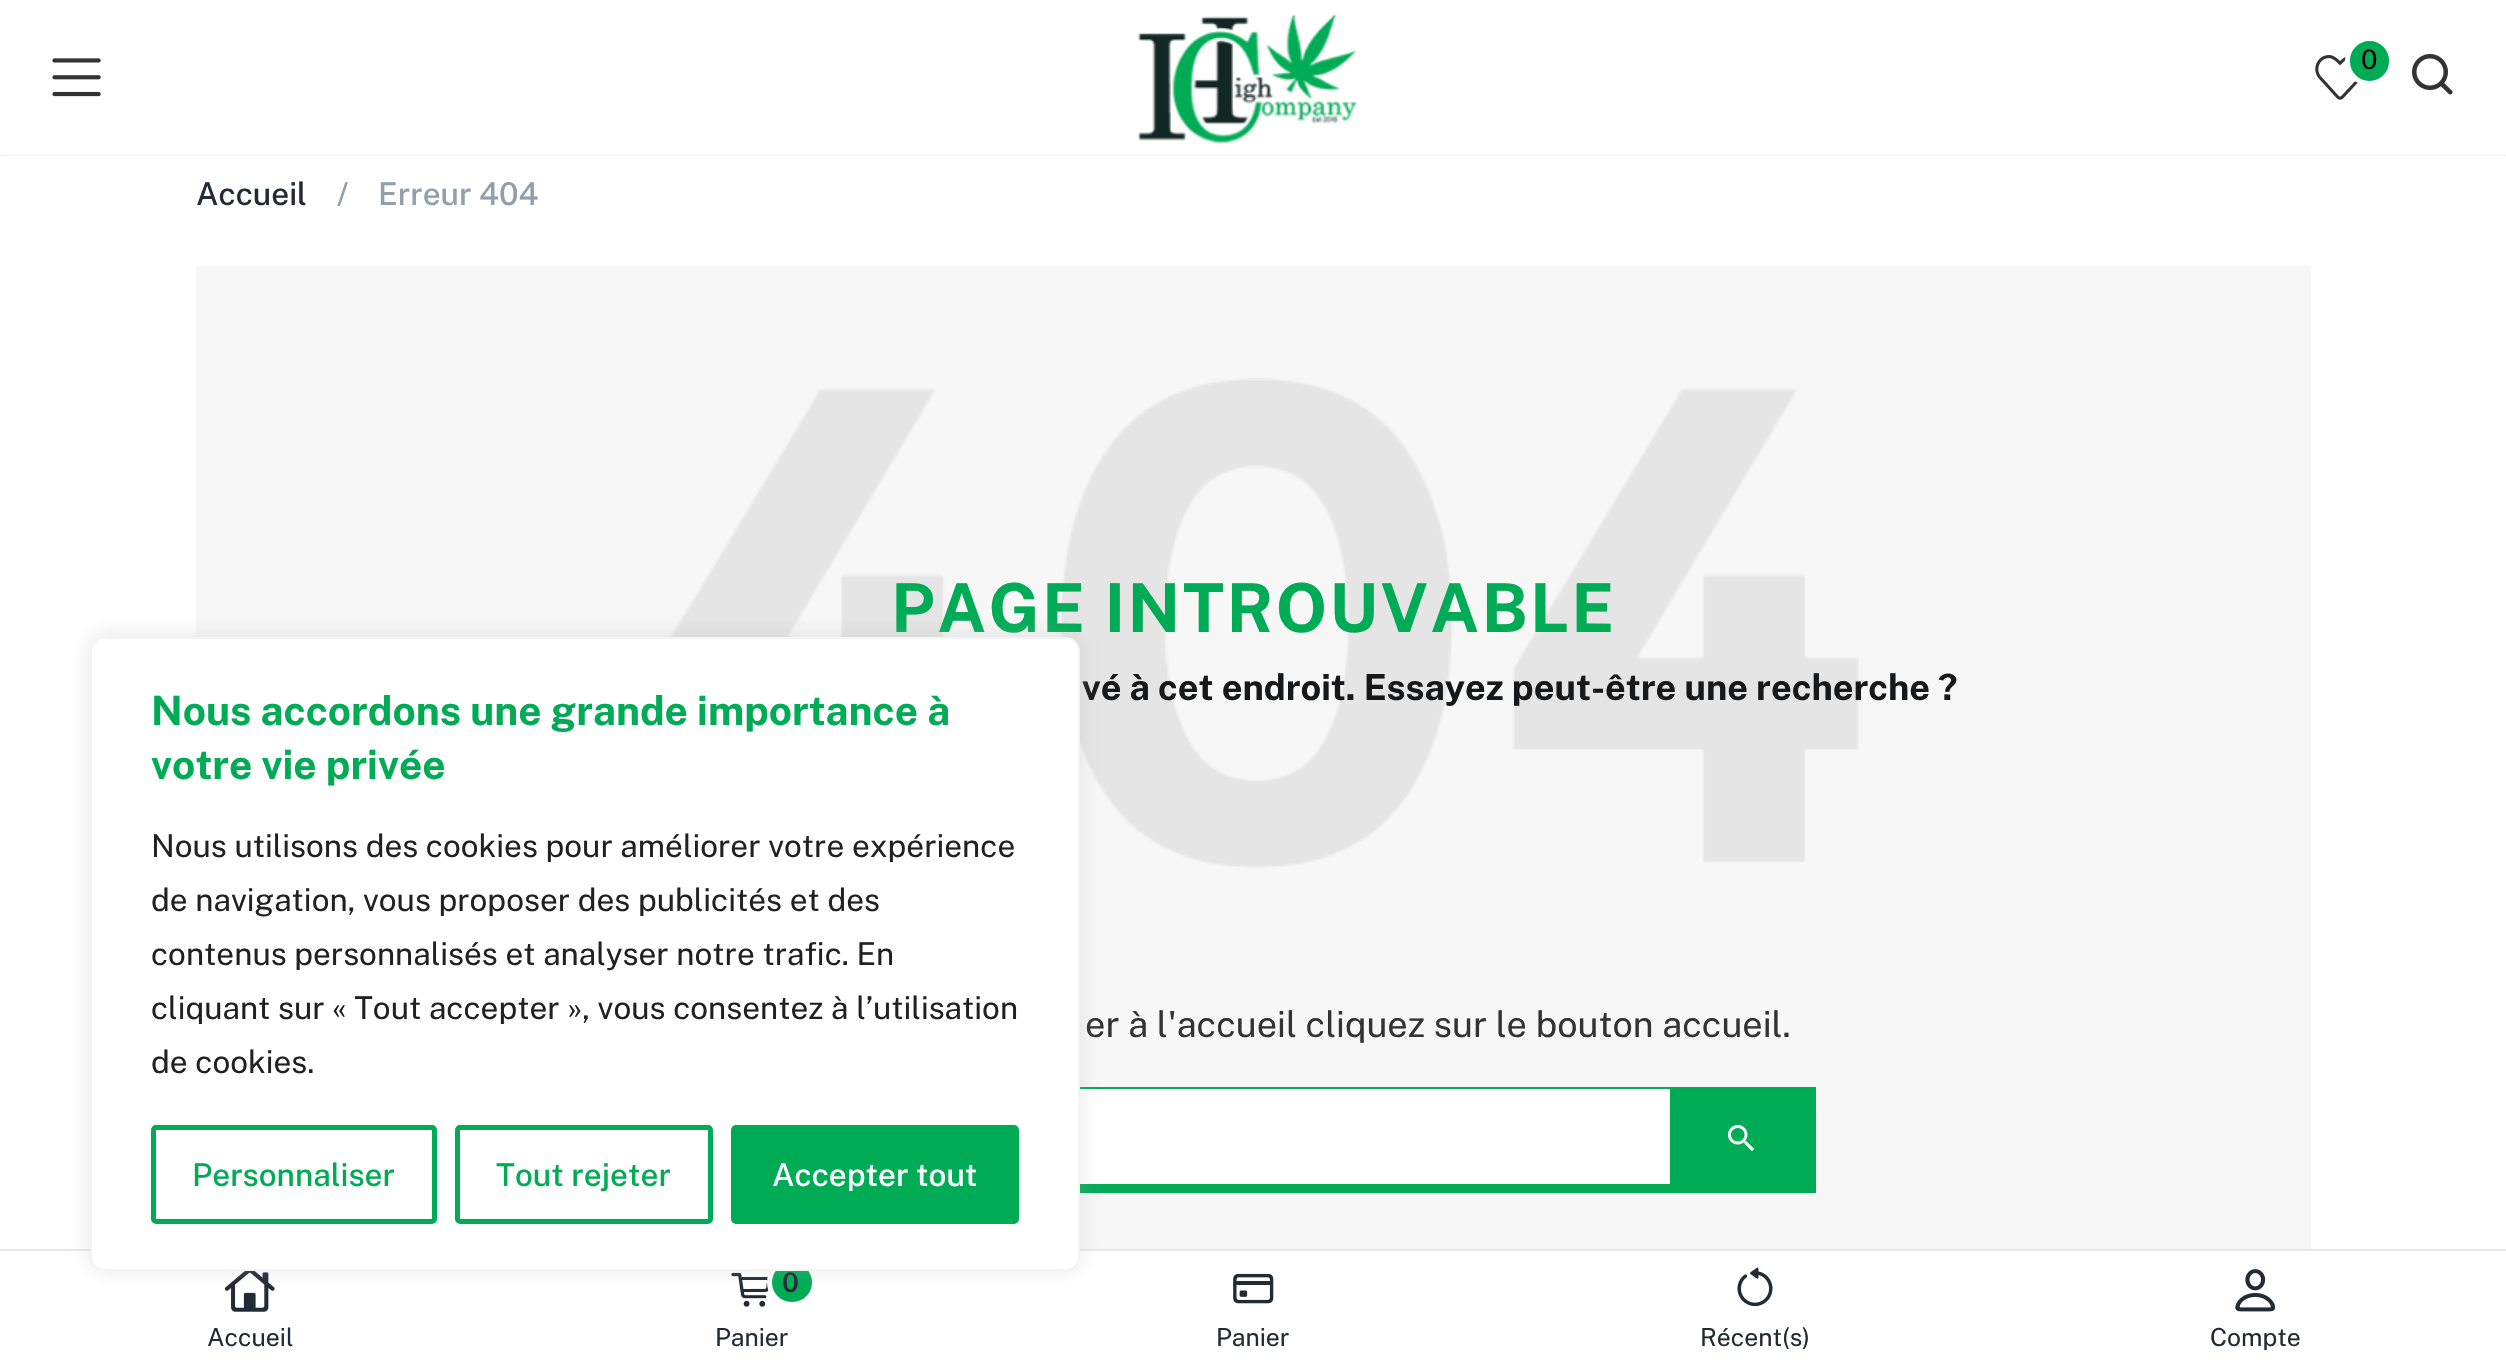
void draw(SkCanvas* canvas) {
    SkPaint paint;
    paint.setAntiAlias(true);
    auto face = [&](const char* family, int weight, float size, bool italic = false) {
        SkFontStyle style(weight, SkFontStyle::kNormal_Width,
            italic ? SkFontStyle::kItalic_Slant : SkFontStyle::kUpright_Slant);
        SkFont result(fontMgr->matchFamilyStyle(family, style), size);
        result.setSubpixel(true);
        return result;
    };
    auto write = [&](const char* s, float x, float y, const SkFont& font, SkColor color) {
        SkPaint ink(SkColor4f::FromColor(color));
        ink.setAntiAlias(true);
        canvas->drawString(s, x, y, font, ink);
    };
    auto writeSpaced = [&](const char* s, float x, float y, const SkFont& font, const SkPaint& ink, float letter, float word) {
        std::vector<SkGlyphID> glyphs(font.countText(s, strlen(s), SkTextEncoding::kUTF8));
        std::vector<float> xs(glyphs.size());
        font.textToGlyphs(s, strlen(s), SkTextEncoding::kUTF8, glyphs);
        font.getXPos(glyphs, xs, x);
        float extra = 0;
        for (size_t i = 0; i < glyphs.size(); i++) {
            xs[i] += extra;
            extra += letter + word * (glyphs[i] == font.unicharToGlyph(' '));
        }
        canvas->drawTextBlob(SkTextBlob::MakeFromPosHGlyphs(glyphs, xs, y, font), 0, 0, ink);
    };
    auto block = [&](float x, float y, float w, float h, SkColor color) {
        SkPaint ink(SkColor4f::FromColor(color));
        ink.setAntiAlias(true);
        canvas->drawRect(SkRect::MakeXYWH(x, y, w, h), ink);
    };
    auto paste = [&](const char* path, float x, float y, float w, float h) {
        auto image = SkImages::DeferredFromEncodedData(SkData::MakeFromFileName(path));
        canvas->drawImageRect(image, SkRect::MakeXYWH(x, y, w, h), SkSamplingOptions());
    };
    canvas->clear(SK_ColorWHITE);
    canvas->save();
    canvas->clipRect(SkRect::MakeXYWH(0, 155, 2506, 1));
    paint.setColor(SkColorSetARGB(51, 0, 0, 0));
    paint.setMaskFilter(SkMaskFilter::MakeBlur(kNormal_SkBlurStyle, 1));
    canvas->drawRect(SkRect::MakeXYWH(0, 0, 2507, 155), paint);
    paint.setMaskFilter(nullptr);
    canvas->restore();
    paste("pic1.png", 52, 58, 49, 39);
    paste("pic2.png", 1138, 14, 219, 130);
    paste("pic3.png", 2315, 55, 43, 45);
    paint.setColor(SkColorSetRGB(0, 171, 85));
    canvas->drawRoundRect(SkRect::MakeXYWH(2347.5f, 38.5f, 44, 45), 22, 22, paint);
    paint.setStyle(SkPaint::kStroke_Style);
    paint.setStrokeWidth(5);
    paint.setColor(SK_ColorWHITE);
    canvas->drawRoundRect(SkRect::MakeXYWH(2347.5f, 38.5f, 44, 45), 22, 22, paint);
    auto kFont1 = face("Public Sans", 400, 27);
    write("0", 2361, 69, kFont1, SK_ColorBLACK);
    paste("pic4.png", 2412, 54, 41, 41);
    auto kFont2 = face("Public Sans", 500, 31.5f);
    write("Accueil", 196, 205, kFont2, SkColorSetRGB(33, 43, 54));
    write("/", 337, 205, kFont2, SkColorSetRGB(145, 158, 171));
    write("Erreur 404", 378, 205, kFont2, SkColorSetRGB(145, 158, 171));
    block(196, 266, 2115, 983, SkColorSetRGB(247, 247, 247));
    paste("pic5.png", 669, 378, 1190, 491);
    auto kFont3 = face("Public Sans", 700, 67.5f);
    paint.setStyle(SkPaint::kFill_Style);
    paint.setColor(SkColorSetRGB(0, 171, 85));
    writeSpaced("PAGE INTROUVABLE", 891, 632, kFont3, paint, 2.25f, 0);
    auto kFont4 = face("Public Sans", 700, 36);
    write("vé à cet endroit. Essayez peut-être une recherche ?", 1082, 700, kFont4, SkColorSetRGB(23, 24, 26));
    auto kFont5 = face("Public Sans", 400, 36);
    write("er à l'accueil cliquez sur le bouton accueil.", 1085, 1037, kFont5, SkColorSetRGB(51, 51, 51));
    block(1080, 1087, 736, 106, SkColorSetRGB(0, 171, 85));
    block(1080, 1089, 590, 95, SK_ColorWHITE);
    paste("pic6.png", 1728, 1125, 27, 27);
    block(0, 1249, 2506, 2, SkColorSetRGB(229, 232, 235));
    paste("pic7.png", 224, 1271, 51, 41);
    auto kFont6 = face("Public Sans", 400, 24.75f);
    write("Accueil", 207, 1346, kFont6, SkColorSetRGB(33, 43, 54));
    paste("pic8.png", 731, 1272, 38, 35);
    canvas->drawRoundRect(SkRect::MakeXYWH(769.5f, 1260.5f, 45, 44), 22, 22, paint);
    paint.setStyle(SkPaint::kStroke_Style);
    paint.setColor(SK_ColorWHITE);
    canvas->drawRoundRect(SkRect::MakeXYWH(769.5f, 1260.5f, 45, 44), 22, 22, paint);
    auto kFont7 = face("Public Sans", 600, 27);
    write("0", 782, 1292, kFont7, SkColorSetRGB(33, 43, 54));
    write("Panier", 715, 1346, kFont6, SkColorSetRGB(33, 43, 54));
    paste("pic9.png", 1233, 1273, 41, 31);
    write("Panier", 1216, 1346, kFont6, SkColorSetRGB(33, 43, 54));
    paste("pic10.png", 1737, 1267, 36, 40);
    write("Récent(s)", 1700, 1346, kFont6, SkColorSetRGB(33, 43, 54));
    paste("pic11.png", 2235, 1269, 41, 43);
    write("Compte", 2210, 1346, kFont6, SkColorSetRGB(33, 43, 54));
    paint.setStyle(SkPaint::kFill_Style);
    paint.setColor(SkColorSetARGB(77, 172, 171, 171));
    paint.setMaskFilter(SkMaskFilter::MakeBlur(kNormal_SkBlurStyle, 11));
    canvas->drawRoundRect(SkRect::MakeXYWH(90, 635, 990, 634), 14, 14, paint);
    paint.setMaskFilter(nullptr);
    paint.setColor(SK_ColorWHITE);
    canvas->drawRoundRect(SkRect::MakeXYWH(91, 638, 988, 632), 13, 13, paint);
    paint.setStyle(SkPaint::kStroke_Style);
    paint.setStrokeWidth(2);
    paint.setColor(SkColorSetRGB(244, 244, 244));
    canvas->drawRoundRect(SkRect::MakeXYWH(91, 638, 988, 632), 13, 13, paint);
    auto kFont8 = face("Public Sans", 700, 40.5f);
    write("Nous accordons une grande importance à", 151, 725, kFont8, SkColorSetRGB(0, 171, 85));
    write("votre vie privée", 151, 779, kFont8, SkColorSetRGB(0, 171, 85));
    auto kFont9 = face("Public Sans", 400, 31.5f);
    write("Nous utilisons des cookies pour améliorer votre expérience", 151, 857, kFont9, SkColorSetRGB(33, 33, 33));
    write("de navigation, vous proposer des publicités et des", 151, 911, kFont9, SkColorSetRGB(33, 33, 33));
    write("contenus personnalisés et analyser notre trafic. En", 151, 965, kFont9, SkColorSetRGB(33, 33, 33));
    write("cliquant sur « Tout accepter », vous consentez à l’utilisation", 151, 1019, kFont9, SkColorSetRGB(33, 33, 33));
    write("de cookies.", 151, 1073, kFont9, SkColorSetRGB(33, 33, 33));
    paint.setStrokeWidth(5);
    paint.setColor(SkColorSetRGB(0, 171, 85));
    canvas->drawRoundRect(SkRect::MakeXYWH(153.5f, 1127.5f, 281, 94), 2.5f, 2.5f, paint);
    write("Personnaliser", 192, 1186, kFont2, SkColorSetRGB(0, 171, 85));
    canvas->drawRoundRect(SkRect::MakeXYWH(457.5f, 1127.5f, 253, 94), 2.5f, 2.5f, paint);
    write("Tout rejeter", 496, 1186, kFont2, SkColorSetRGB(0, 171, 85));
    paint.setStyle(SkPaint::kFill_Style);
    canvas->drawRoundRect(SkRect::MakeXYWH(733.5f, 1127.5f, 283, 94), 2.5f, 2.5f, paint);
    paint.setStyle(SkPaint::kStroke_Style);
    canvas->drawRoundRect(SkRect::MakeXYWH(733.5f, 1127.5f, 283, 94), 2.5f, 2.5f, paint);
    write("Accepter tout", 772, 1186, kFont2, SK_ColorWHITE);
}
